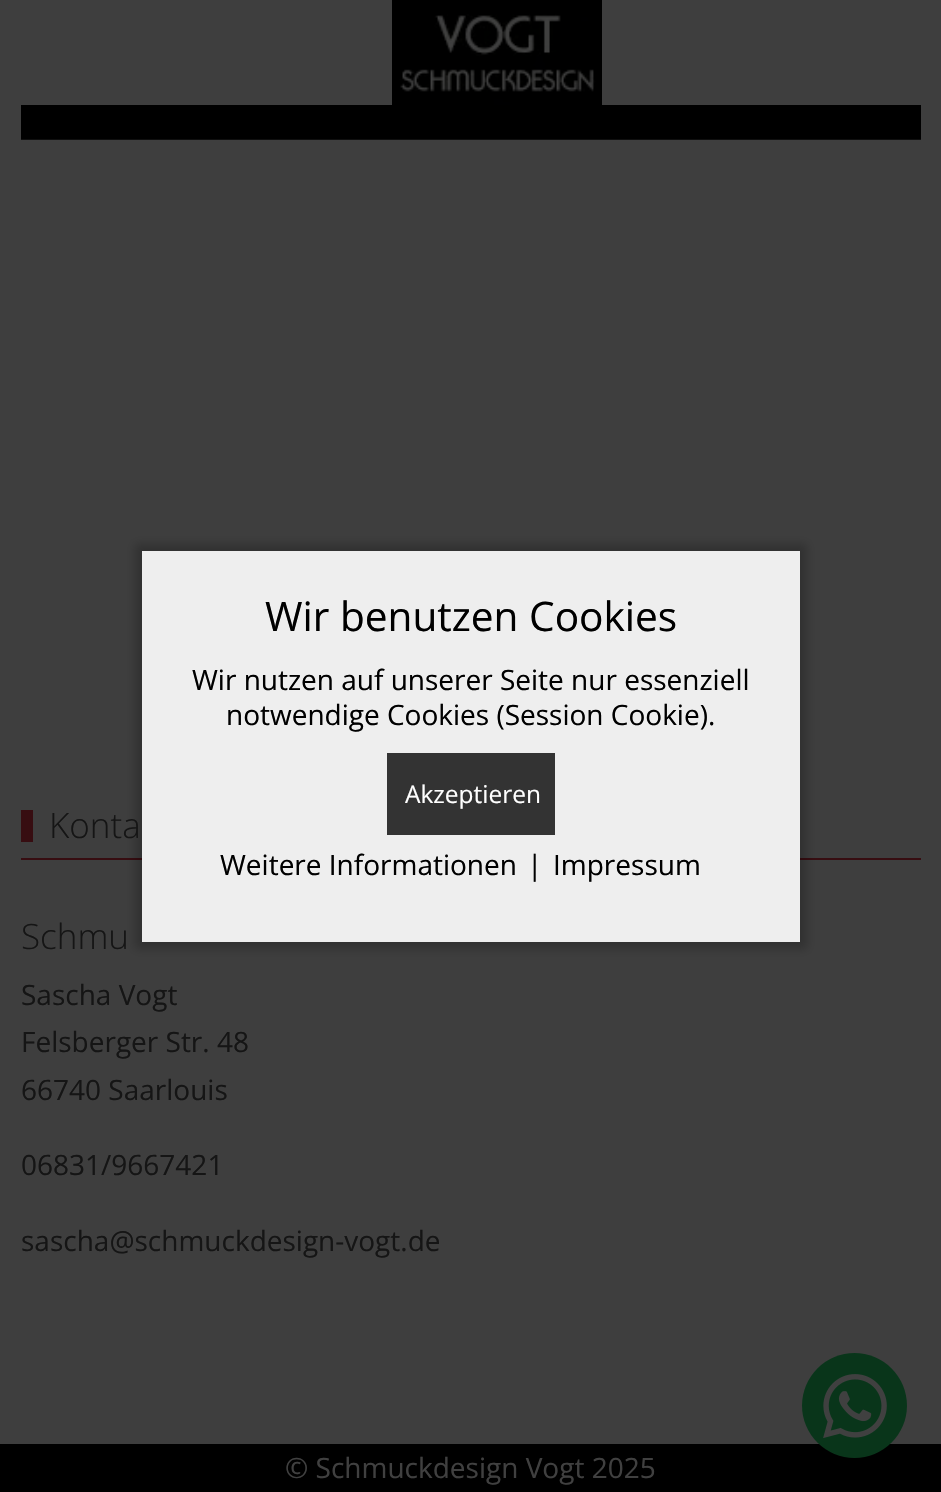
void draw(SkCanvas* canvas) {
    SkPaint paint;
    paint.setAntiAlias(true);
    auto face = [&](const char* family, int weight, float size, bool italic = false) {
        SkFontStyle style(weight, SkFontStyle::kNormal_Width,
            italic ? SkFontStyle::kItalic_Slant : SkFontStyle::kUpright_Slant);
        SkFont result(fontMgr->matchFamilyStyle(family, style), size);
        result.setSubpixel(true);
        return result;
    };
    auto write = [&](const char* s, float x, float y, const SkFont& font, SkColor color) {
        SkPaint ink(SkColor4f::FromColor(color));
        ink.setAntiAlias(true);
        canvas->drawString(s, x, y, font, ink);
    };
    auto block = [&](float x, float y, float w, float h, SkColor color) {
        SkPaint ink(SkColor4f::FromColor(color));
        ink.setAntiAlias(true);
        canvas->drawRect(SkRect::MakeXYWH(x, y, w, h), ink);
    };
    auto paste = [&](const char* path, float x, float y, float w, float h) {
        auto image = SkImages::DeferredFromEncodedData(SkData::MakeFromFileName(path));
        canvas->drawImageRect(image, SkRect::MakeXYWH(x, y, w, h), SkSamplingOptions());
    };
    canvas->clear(SkColorSetRGB(62, 62, 62));
    block(21, 858, 900, 2, SkColorSetRGB(55, 13, 17));
    paint.setColor(SkColorSetARGB(54, 0, 0, 0));
    paint.setMaskFilter(SkMaskFilter::MakeBlur(kNormal_SkBlurStyle, 4.5f));
    canvas->drawRect(SkRect::MakeXYWH(135, 544, 672, 405), paint);
    paint.setMaskFilter(nullptr);
    block(142, 551, 658, 391, SkColorSetRGB(238, 238, 238));
    auto kFont1 = face("Open Sans", 400, 40.6f);
    write("Wir benutzen Cookies", 265, 631, kFont1, SK_ColorBLACK);
    auto kFont2 = face("Open Sans", 400, 28);
    write("Wir nutzen auf unserer Seite nur essenziell", 192, 690, kFont2, SK_ColorBLACK);
    write("notwendige Cookies (Session Cookie).", 226, 725, kFont2, SK_ColorBLACK);
    block(387, 753, 168, 82, SkColorSetRGB(51, 51, 51));
    auto kFont3 = face("Open Sans", 400, 24.5f);
    write("Akzeptieren", 405, 803, kFont3, SK_ColorWHITE);
    write("Weitere Informationen", 220, 875, kFont2, SK_ColorBLACK);
    write("|", 527, 875, kFont2, SK_ColorBLACK);
    write("Impressum", 553, 875, kFont2, SK_ColorBLACK);
    paste("pic1.png", 392, 0, 210, 105);
    paste("pic2.png", 21, 105, 900, 35);
    block(21, 810, 12, 32, SkColorSetRGB(55, 13, 17));
    auto kFont4 = face("Open Sans", 300, 35);
    write("Konta", 49, 838, kFont4, SkColorSetRGB(21, 21, 21));
    write("Schmu", 21, 949, kFont4, SkColorSetRGB(21, 21, 21));
    write("Sascha Vogt", 21, 1005, kFont2, SkColorSetRGB(21, 21, 21));
    write("Felsberger Str. 48", 21, 1052, kFont2, SkColorSetRGB(21, 21, 21));
    write("66740 Saarlouis", 21, 1100, kFont2, SkColorSetRGB(21, 21, 21));
    write("06831/9667421", 21, 1175, kFont2, SkColorSetRGB(21, 21, 21));
    write("sascha@schmuckdesign-vogt.de", 21, 1251, kFont2, SkColorSetRGB(21, 21, 21));
    block(0, 1444, 941, 48, SK_ColorBLACK);
    write("© Schmuckdesign Vogt 2025", 285, 1478, kFont2, SkColorSetRGB(64, 64, 64));
    paint.setColor(SkColorSetRGB(9, 53, 26));
    canvas->drawCircle(854.5f, 1405.5f, 52.5f, paint);
    paste("pic3.png", 823, 1374, 64, 64);
}
